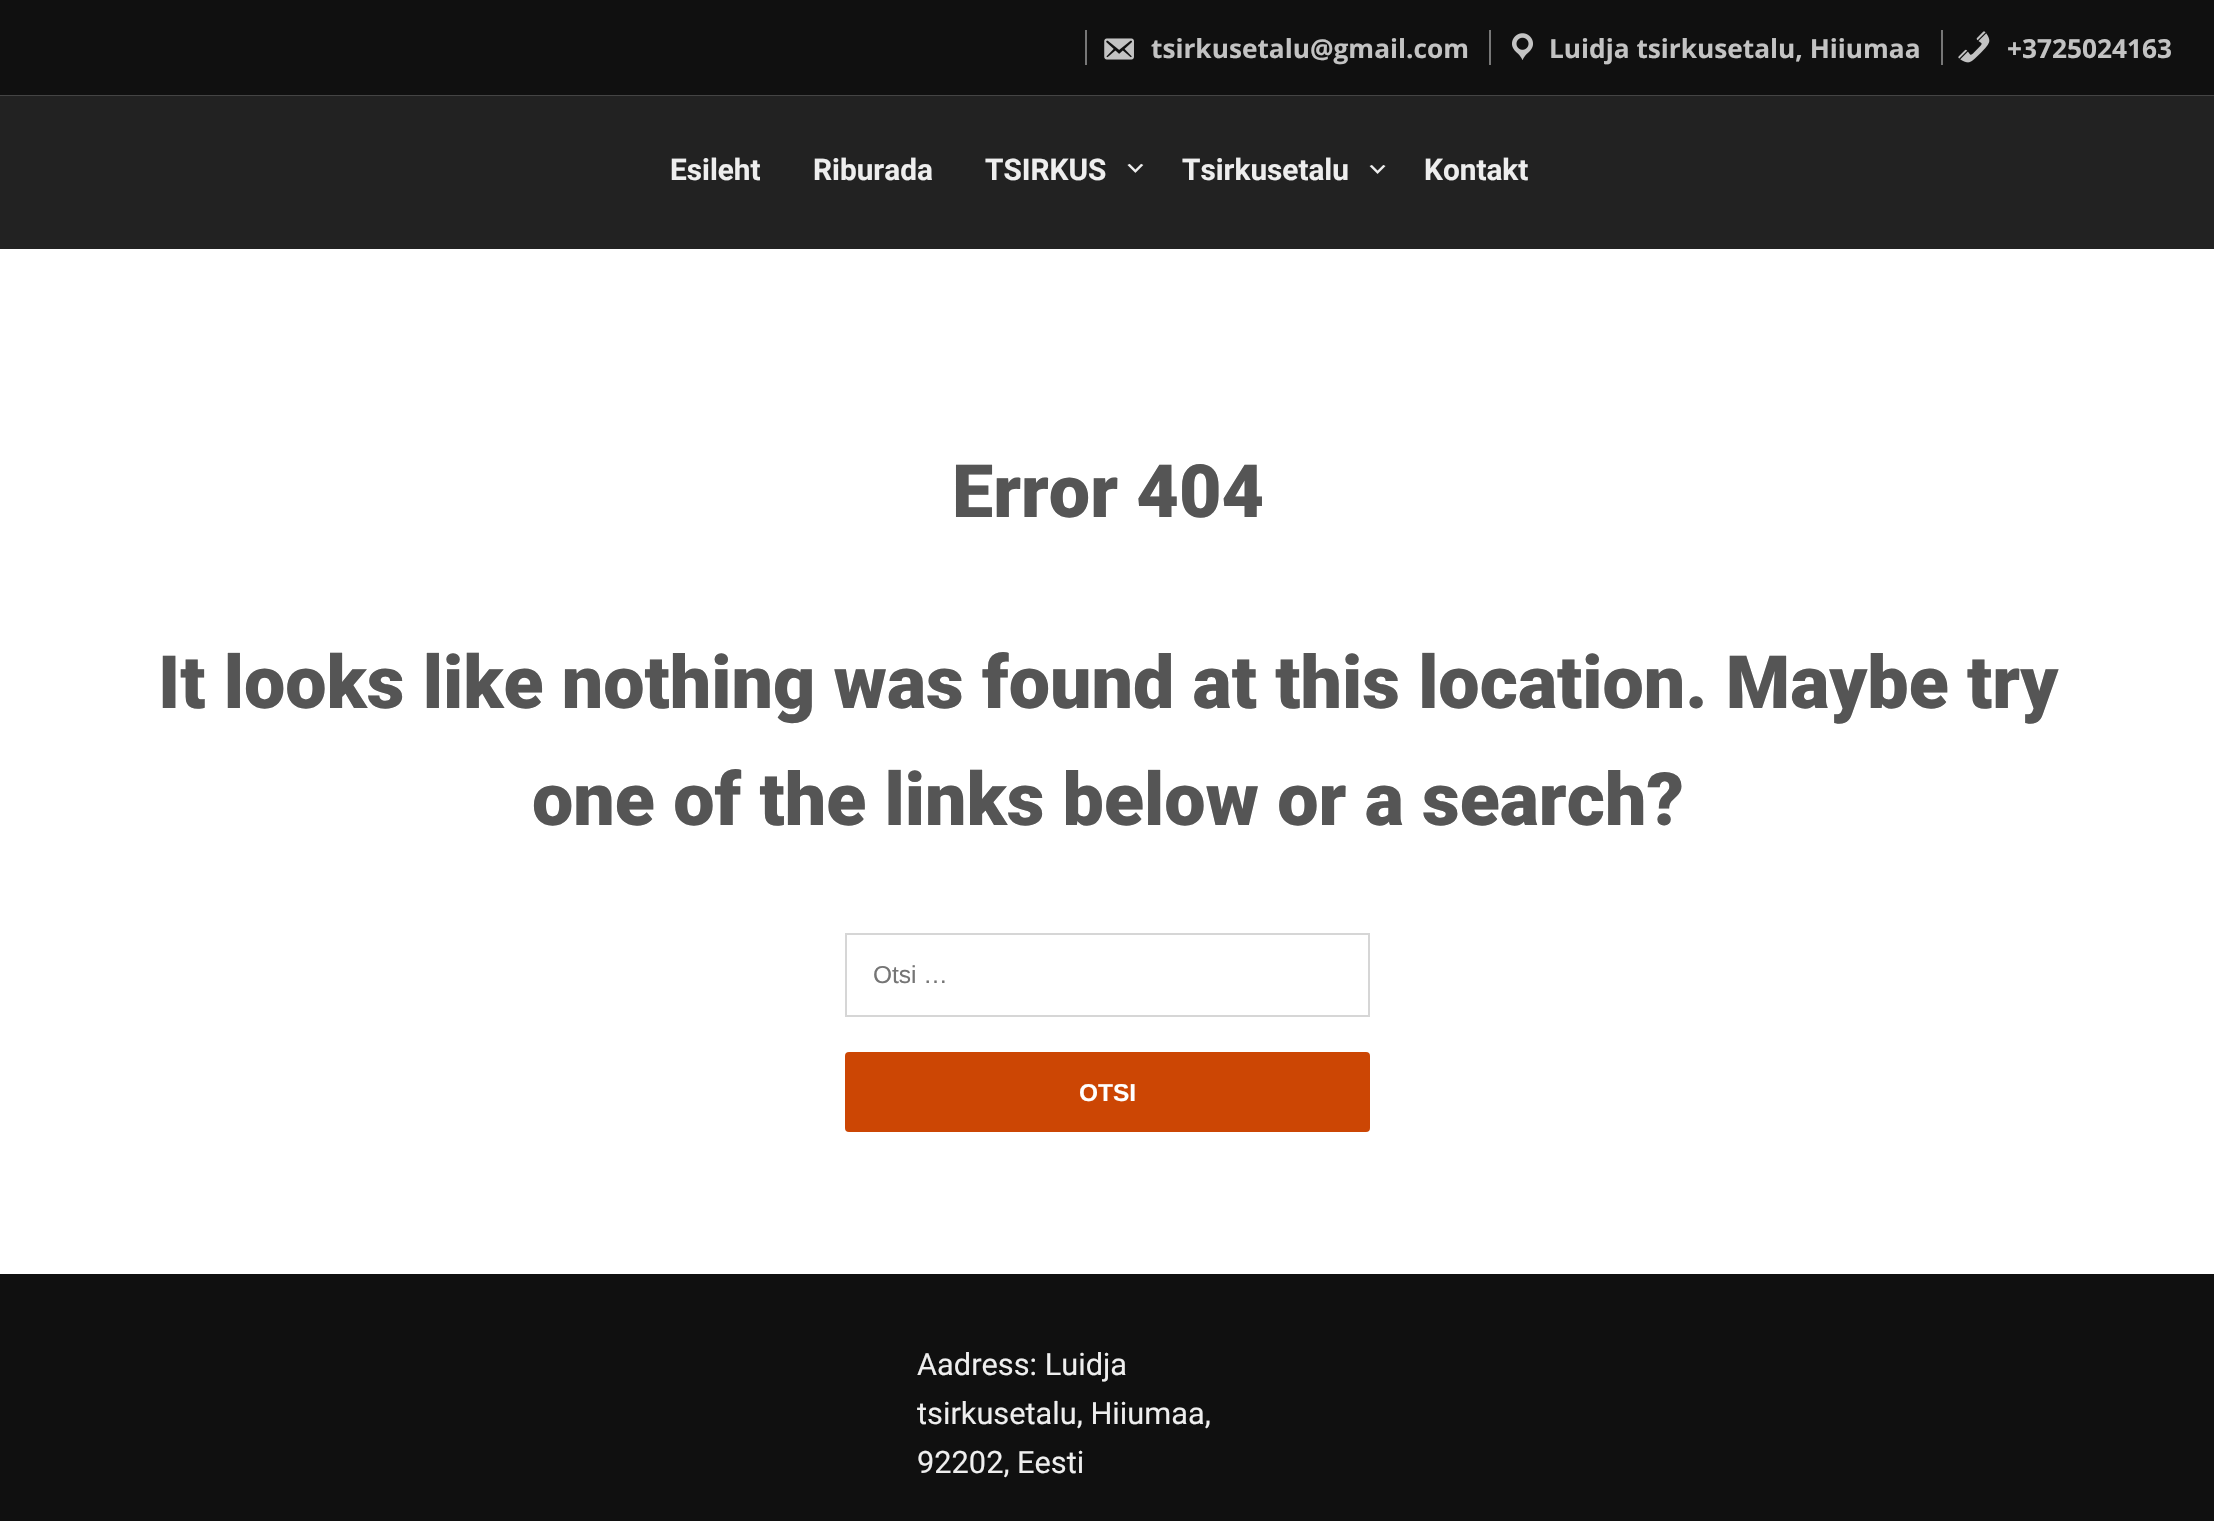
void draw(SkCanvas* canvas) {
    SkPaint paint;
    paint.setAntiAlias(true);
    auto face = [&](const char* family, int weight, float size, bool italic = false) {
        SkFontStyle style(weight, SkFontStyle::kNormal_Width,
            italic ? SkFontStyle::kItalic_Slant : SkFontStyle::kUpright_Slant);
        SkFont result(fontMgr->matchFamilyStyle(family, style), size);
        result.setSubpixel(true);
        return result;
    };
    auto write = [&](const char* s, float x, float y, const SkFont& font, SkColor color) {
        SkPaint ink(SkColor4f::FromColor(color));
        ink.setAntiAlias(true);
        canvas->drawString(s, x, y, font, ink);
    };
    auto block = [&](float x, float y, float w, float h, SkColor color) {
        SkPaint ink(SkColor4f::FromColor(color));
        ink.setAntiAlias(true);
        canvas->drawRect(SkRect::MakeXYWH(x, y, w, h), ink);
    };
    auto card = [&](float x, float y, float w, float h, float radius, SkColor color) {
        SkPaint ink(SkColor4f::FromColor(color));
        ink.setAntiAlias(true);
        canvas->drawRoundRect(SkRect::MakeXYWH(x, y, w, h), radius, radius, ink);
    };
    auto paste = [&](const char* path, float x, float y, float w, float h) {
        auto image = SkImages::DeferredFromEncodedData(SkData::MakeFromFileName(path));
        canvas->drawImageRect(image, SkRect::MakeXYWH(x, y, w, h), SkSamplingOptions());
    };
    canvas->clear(SK_ColorWHITE);
    block(0, 0, 2214, 95, SkColorSetRGB(16, 16, 16));
    block(0, 95, 2214, 1, SkColorSetRGB(68, 68, 68));
    block(1085, 30, 2, 35, SkColorSetRGB(119, 119, 119));
    paste("pic1.png", 1104, 38, 30, 22);
    auto kFont1 = face("Open Sans", 700, 26.25f);
    write("tsirkusetalu@gmail.com", 1151, 58, kFont1, SkColorSetRGB(195, 195, 195));
    block(1489, 30, 2, 35, SkColorSetRGB(119, 119, 119));
    paste("pic2.png", 1512, 33, 21, 27);
    write("Luidja tsirkusetalu, Hiiumaa", 1549, 58, kFont1, SkColorSetRGB(195, 195, 195));
    block(1941, 30, 2, 35, SkColorSetRGB(119, 119, 119));
    paste("pic3.png", 1958, 31, 32, 32);
    write("+3725024163", 2007, 58, kFont1, SkColorSetRGB(195, 195, 195));
    block(0, 96, 2214, 153, SkColorSetRGB(34, 34, 34));
    auto kFont2 = face("Roboto", 700, 29.75f);
    write("Esileht", 670, 180, kFont2, SkColorSetRGB(238, 238, 238));
    write("Riburada", 813, 180, kFont2, SkColorSetRGB(238, 238, 238));
    write("TSIRKUS", 985, 180, kFont2, SkColorSetRGB(238, 238, 238));
    paste("pic4.png", 1127, 163, 17, 10);
    write("Tsirkusetalu", 1182, 180, kFont2, SkColorSetRGB(238, 238, 238));
    paste("pic5.png", 1369, 165, 17, 9);
    write("Kontakt", 1424, 180, kFont2, SkColorSetRGB(238, 238, 238));
    auto kFont3 = face("Roboto", 900, 73.5f);
    write("Error 404", 952, 517, kFont3, SkColorSetRGB(85, 85, 85));
    write("It looks like nothing was found at this location. Maybe try", 158, 708, kFont3, SkColorSetRGB(85, 85, 85));
    write("one of the links below or a search?", 532, 825, kFont3, SkColorSetRGB(85, 85, 85));
    paint.setStyle(SkPaint::kStroke_Style);
    paint.setStrokeWidth(2);
    paint.setColor(SkColorSetRGB(214, 214, 214));
    canvas->drawRect(SkRect::MakeXYWH(846, 934, 523, 82), paint);
    auto kFont4 = face("Liberation Sans", 400, 24.5f);
    write("Otsi …", 873, 983, kFont4, SkColorSetRGB(117, 117, 117));
    card(845, 1052, 525, 80, 4, SkColorSetRGB(204, 70, 4));
    auto kFont5 = face("Liberation Sans", 700, 24.5f);
    write("OTSI", 1079, 1101, kFont5, SK_ColorWHITE);
    block(0, 1274, 2214, 247, SkColorSetRGB(16, 16, 16));
    auto kFont6 = face("Roboto", 400, 30.75f);
    write("Aadress: Luidja", 917, 1375, kFont6, SkColorSetRGB(238, 238, 238));
    write("tsirkusetalu, Hiiumaa,", 917, 1424, kFont6, SkColorSetRGB(238, 238, 238));
    write("92202, Eesti", 917, 1473, kFont6, SkColorSetRGB(238, 238, 238));
}
